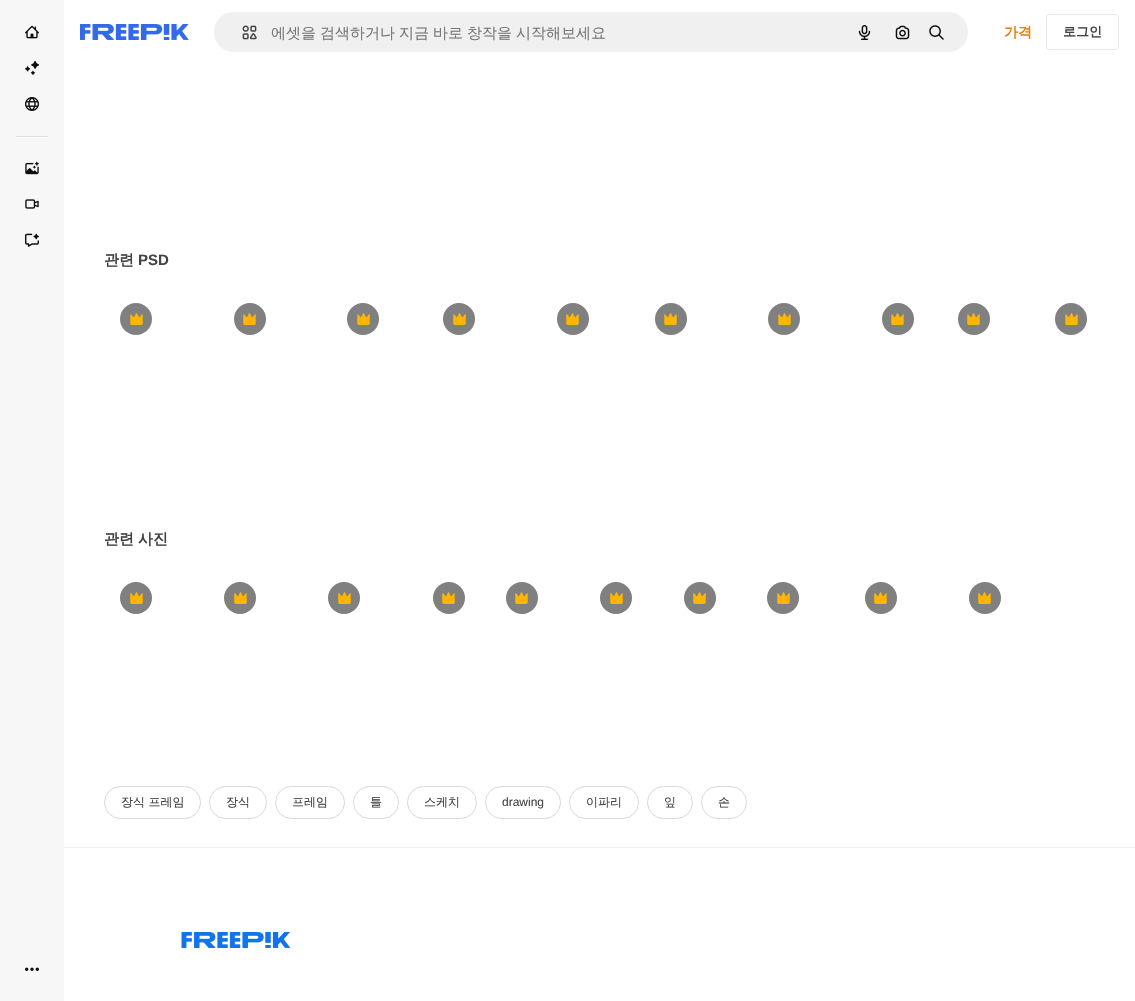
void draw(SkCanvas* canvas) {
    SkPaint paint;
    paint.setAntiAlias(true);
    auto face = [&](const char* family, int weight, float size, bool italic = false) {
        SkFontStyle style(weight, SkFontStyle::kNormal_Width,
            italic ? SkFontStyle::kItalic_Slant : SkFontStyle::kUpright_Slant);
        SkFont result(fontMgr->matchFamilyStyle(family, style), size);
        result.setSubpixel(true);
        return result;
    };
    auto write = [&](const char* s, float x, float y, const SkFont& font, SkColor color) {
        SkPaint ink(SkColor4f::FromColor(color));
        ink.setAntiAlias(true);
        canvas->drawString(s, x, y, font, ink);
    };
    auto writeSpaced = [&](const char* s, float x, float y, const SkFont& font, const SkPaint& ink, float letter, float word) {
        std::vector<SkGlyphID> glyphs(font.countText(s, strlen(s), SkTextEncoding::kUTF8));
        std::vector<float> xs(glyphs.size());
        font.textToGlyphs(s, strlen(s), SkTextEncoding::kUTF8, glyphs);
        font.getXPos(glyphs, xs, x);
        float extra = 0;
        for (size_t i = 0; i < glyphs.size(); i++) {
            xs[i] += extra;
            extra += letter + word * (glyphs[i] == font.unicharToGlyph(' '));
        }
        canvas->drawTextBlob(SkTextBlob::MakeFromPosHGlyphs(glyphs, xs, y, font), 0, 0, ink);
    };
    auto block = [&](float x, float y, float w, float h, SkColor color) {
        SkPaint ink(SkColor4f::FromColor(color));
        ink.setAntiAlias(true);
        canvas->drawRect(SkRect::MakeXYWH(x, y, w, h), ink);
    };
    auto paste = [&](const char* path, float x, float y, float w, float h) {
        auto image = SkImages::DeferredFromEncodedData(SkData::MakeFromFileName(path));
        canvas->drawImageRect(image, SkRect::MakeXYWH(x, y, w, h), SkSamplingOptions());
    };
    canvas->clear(SK_ColorWHITE);
    block(0, 0, 64, 1001, SkColorSetRGB(247, 247, 247));
    paste("pic1.png", 25, 25, 14, 14);
    paste("pic2.png", 25, 61, 14, 14);
    paste("pic3.png", 25, 97, 14, 14);
    block(16, 136, 32, 1, SkColorSetRGB(224, 224, 224));
    paste("pic4.png", 25, 161, 14, 14);
    paste("pic5.png", 25, 199, 14, 10);
    paste("pic6.png", 25, 233, 14, 14);
    paste("pic7.png", 25, 967, 14, 4);
    paste("pic8.png", 80, 24, 109, 16);
    paint.setColor(SkColorSetRGB(240, 240, 240));
    canvas->drawRoundRect(SkRect::MakeXYWH(213.5f, 11.5f, 755, 41), 20.5f, 20.5f, paint);
    paint.setStyle(SkPaint::kStroke_Style);
    paint.setStrokeWidth(1);
    paint.setColor(SK_ColorWHITE);
    canvas->drawRoundRect(SkRect::MakeXYWH(213.5f, 11.5f, 755, 41), 20.5f, 20.5f, paint);
    paste("pic9.png", 242, 25, 15, 15);
    auto kFont1 = face("WenQuanYi Zen Hei", 500, 15);
    paint.setStyle(SkPaint::kFill_Style);
    paint.setColor(SkColorSetRGB(119, 119, 119));
    writeSpaced("에셋을 검색하거나 지금 바로 창작을 시작해보세요", 271, 38, kFont1, paint, 0, -0.5f);
    paste("pic10.png", 858, 25, 13, 15);
    paste("pic11.png", 895, 25, 15, 15);
    paste("pic12.png", 929, 25, 15, 15);
    auto kFont2 = face("WenQuanYi Zen Hei", 700, 14);
    write("가격", 1004, 37, kFont2, SkColorSetRGB(234, 126, 17));
    paint.setStyle(SkPaint::kStroke_Style);
    paint.setColor(SkColorSetRGB(231, 231, 231));
    canvas->drawRoundRect(SkRect::MakeXYWH(1046.5f, 14.5f, 72, 35), 3.5f, 3.5f, paint);
    auto kFont3 = face("WenQuanYi Zen Hei", 700, 13);
    write("로그인", 1063, 36, kFont3, SkColorSetRGB(66, 66, 66));
    auto kFont4 = face("WenQuanYi Zen Hei", 700, 15);
    write("관련", 104, 265, kFont4, SkColorSetRGB(66, 66, 66));
    auto kFont5 = face("Liberation Sans", 700, 15);
    write("PSD", 138, 265, kFont5, SkColorSetRGB(66, 66, 66));
    paint.setStyle(SkPaint::kFill_Style);
    paint.setColor(SkColorSetRGB(128, 128, 128));
    canvas->drawCircle(136, 319, 16, paint);
    paste("pic13.png", 130, 313, 13, 12);
    canvas->drawCircle(250, 319, 16, paint);
    paste("pic13.png", 243, 313, 13, 12);
    canvas->drawCircle(363, 319, 16, paint);
    paste("pic13.png", 357, 313, 13, 12);
    canvas->drawCircle(459, 319, 16, paint);
    paste("pic13.png", 453, 313, 13, 12);
    canvas->drawCircle(573, 319, 16, paint);
    paste("pic13.png", 566, 313, 13, 12);
    canvas->drawCircle(671, 319, 16, paint);
    paste("pic13.png", 664, 313, 13, 12);
    canvas->drawCircle(784, 319, 16, paint);
    paste("pic13.png", 778, 313, 13, 12);
    canvas->drawCircle(898, 319, 16, paint);
    paste("pic13.png", 891, 313, 13, 12);
    canvas->drawCircle(974, 319, 16, paint);
    paste("pic13.png", 967, 313, 13, 12);
    canvas->drawCircle(1071, 319, 16, paint);
    paste("pic13.png", 1065, 313, 13, 12);
    paint.setColor(SkColorSetRGB(66, 66, 66));
    writeSpaced("관련 사진", 104, 544, kFont4, paint, 0, -0.5f);
    paint.setColor(SkColorSetRGB(128, 128, 128));
    canvas->drawCircle(136, 598, 16, paint);
    paste("pic13.png", 130, 592, 13, 12);
    canvas->drawCircle(240, 598, 16, paint);
    paste("pic13.png", 234, 592, 13, 12);
    canvas->drawCircle(344, 598, 16, paint);
    paste("pic13.png", 338, 592, 13, 12);
    canvas->drawCircle(449, 598, 16, paint);
    paste("pic13.png", 442, 592, 13, 12);
    canvas->drawCircle(522, 598, 16, paint);
    paste("pic13.png", 515, 592, 13, 12);
    canvas->drawCircle(616, 598, 16, paint);
    paste("pic13.png", 610, 592, 13, 12);
    canvas->drawCircle(700, 598, 16, paint);
    paste("pic13.png", 693, 592, 13, 12);
    canvas->drawCircle(783, 598, 16, paint);
    paste("pic13.png", 777, 592, 13, 12);
    canvas->drawCircle(881, 598, 16, paint);
    paste("pic13.png", 874, 592, 13, 12);
    canvas->drawCircle(985, 598, 16, paint);
    paste("pic13.png", 978, 592, 13, 12);
    paint.setStyle(SkPaint::kStroke_Style);
    paint.setColor(SkColorSetRGB(216, 216, 216));
    canvas->drawRoundRect(SkRect::MakeXYWH(104.5f, 786.5f, 96, 32), 16, 16, paint);
    auto kFont6 = face("WenQuanYi Zen Hei", 500, 12);
    write("장식 프레임", 121, 806, kFont6, SkColorSetRGB(66, 66, 66));
    canvas->drawRoundRect(SkRect::MakeXYWH(209.5f, 786.5f, 57, 32), 16, 16, paint);
    write("장식", 226, 806, kFont6, SkColorSetRGB(66, 66, 66));
    canvas->drawRoundRect(SkRect::MakeXYWH(275.5f, 786.5f, 69, 32), 16, 16, paint);
    write("프레임", 292, 806, kFont6, SkColorSetRGB(66, 66, 66));
    canvas->drawRoundRect(SkRect::MakeXYWH(353.5f, 786.5f, 45, 32), 16, 16, paint);
    write("틀", 370, 806, kFont6, SkColorSetRGB(66, 66, 66));
    canvas->drawRoundRect(SkRect::MakeXYWH(407.5f, 786.5f, 69, 32), 16, 16, paint);
    write("스케치", 424, 806, kFont6, SkColorSetRGB(66, 66, 66));
    canvas->drawRoundRect(SkRect::MakeXYWH(485.5f, 786.5f, 75, 32), 16, 16, paint);
    auto kFont7 = face("Liberation Sans", 400, 12);
    write("drawing", 502, 806, kFont7, SkColorSetRGB(66, 66, 66));
    canvas->drawRoundRect(SkRect::MakeXYWH(569.5f, 786.5f, 69, 32), 16, 16, paint);
    write("이파리", 586, 806, kFont6, SkColorSetRGB(66, 66, 66));
    canvas->drawRoundRect(SkRect::MakeXYWH(647.5f, 786.5f, 45, 32), 16, 16, paint);
    write("잎", 664, 806, kFont6, SkColorSetRGB(66, 66, 66));
    canvas->drawRoundRect(SkRect::MakeXYWH(701.5f, 786.5f, 45, 32), 16, 16, paint);
    write("손", 718, 806, kFont6, SkColorSetRGB(66, 66, 66));
    block(64, 847, 1071, 1, SkColorSetRGB(240, 240, 240));
    paste("pic14.png", 181, 932, 109, 16);
}
